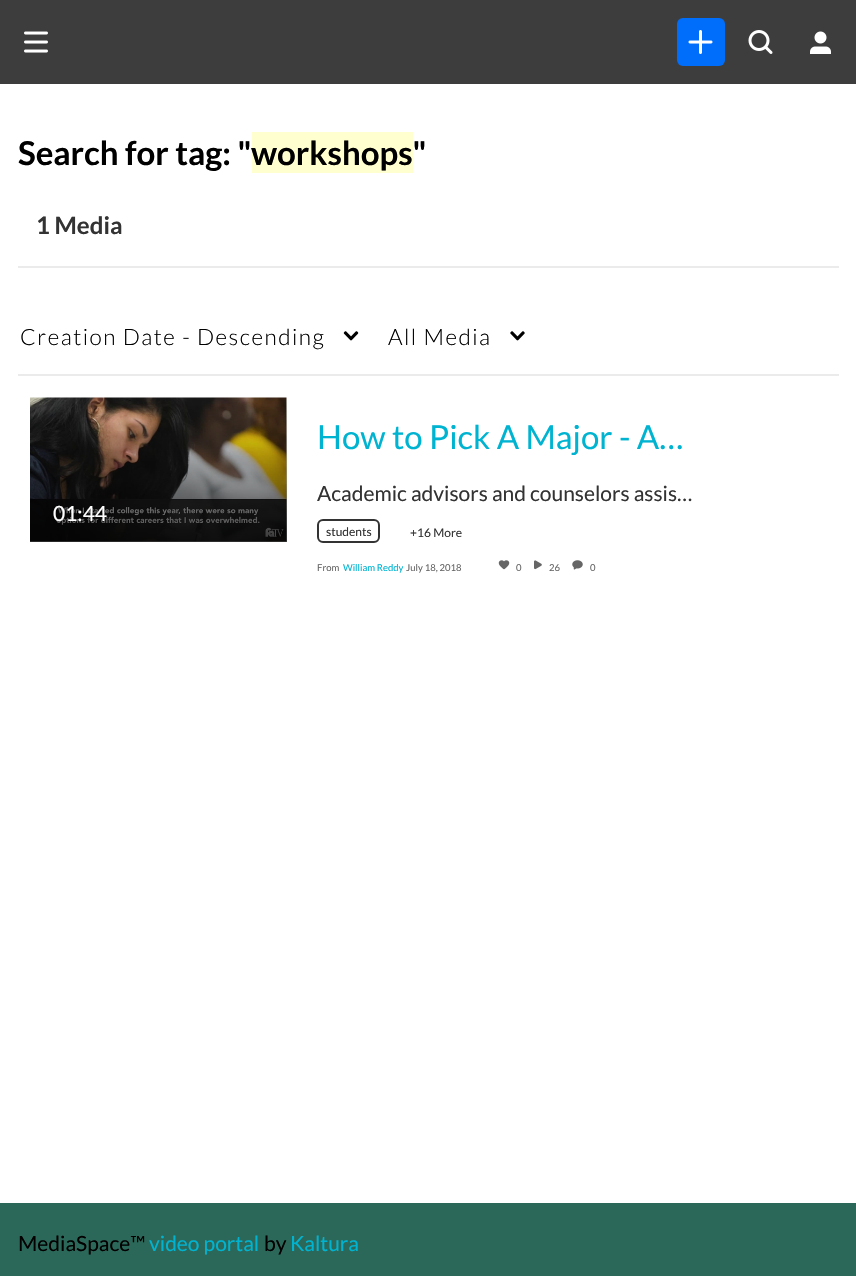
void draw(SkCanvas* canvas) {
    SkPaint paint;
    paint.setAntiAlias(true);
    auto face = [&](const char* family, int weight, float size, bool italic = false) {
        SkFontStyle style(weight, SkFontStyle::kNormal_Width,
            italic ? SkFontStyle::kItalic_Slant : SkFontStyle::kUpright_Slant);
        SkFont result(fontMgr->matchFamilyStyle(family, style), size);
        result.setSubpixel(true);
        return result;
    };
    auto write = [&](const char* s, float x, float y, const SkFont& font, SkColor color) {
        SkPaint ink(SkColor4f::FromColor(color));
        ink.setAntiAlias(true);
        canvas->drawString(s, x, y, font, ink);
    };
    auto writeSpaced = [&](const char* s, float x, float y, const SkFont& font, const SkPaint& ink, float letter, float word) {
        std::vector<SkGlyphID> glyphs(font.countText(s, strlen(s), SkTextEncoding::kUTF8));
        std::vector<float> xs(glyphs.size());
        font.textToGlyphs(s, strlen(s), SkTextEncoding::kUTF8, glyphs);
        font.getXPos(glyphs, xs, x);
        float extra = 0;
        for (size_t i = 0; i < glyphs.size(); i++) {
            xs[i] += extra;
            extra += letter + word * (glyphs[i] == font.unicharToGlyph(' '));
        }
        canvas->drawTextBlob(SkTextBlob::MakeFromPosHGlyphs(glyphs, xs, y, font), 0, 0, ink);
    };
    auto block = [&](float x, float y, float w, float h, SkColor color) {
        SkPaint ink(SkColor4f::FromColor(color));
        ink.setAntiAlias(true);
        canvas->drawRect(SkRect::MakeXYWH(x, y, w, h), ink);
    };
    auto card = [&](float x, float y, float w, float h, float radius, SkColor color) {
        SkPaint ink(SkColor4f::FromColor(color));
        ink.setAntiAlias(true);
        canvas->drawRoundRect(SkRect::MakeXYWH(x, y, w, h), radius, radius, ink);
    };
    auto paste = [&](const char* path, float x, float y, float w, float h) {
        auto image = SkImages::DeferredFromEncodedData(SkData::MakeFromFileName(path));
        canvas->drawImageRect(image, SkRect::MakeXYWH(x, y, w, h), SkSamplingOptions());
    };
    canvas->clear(SK_ColorWHITE);
    block(0, 0, 856, 84, SkColorSetRGB(61, 61, 61));
    paste("pic1.png", 24, 31, 24, 22);
    card(677, 18, 48, 48, 6, SkColorSetRGB(0, 110, 250));
    paste("pic2.png", 688, 30, 25, 24);
    paste("pic3.png", 748, 30, 25, 24);
    paste("pic4.png", 810, 31, 21, 23);
    auto kFont1 = face("Lato", 700, 33);
    write("Search for tag: \"", 18, 165, kFont1, SK_ColorBLACK);
    block(252, 132, 161, 41, SkColorSetRGB(255, 255, 207));
    write("workshops\"", 251, 165, kFont1, SK_ColorBLACK);
    block(18, 266, 821, 2, SkColorSetRGB(235, 235, 235));
    auto kFont2 = face("Lato", 700, 24);
    write("1 Media", 36, 234, kFont2, SkColorSetRGB(51, 51, 51));
    auto kFont3 = face("Lato", 300, 22.5f);
    paint.setColor(SK_ColorBLACK);
    writeSpaced("Creation Date - Descending", 20, 345, kFont3, paint, 1.5f, 0);
    paste("pic5.png", 343, 331, 16, 10);
    writeSpaced("All Media", 388, 345, kFont3, paint, 1.5f, 0);
    paste("pic6.png", 510, 331, 15, 10);
    paste("pic7.png", 30, 397, 257, 145);
    {
        const SkColor colors[] = {SkColorSetARGB(0, 0, 0, 0), SkColorSetARGB(179, 0, 0, 0)};
        const float stops[] = {0, 1};
        const SkPoint ends[] = {{158, 398}, {158, 542}};
        paint.setShader(SkGradientShader::MakeLinear(ends, colors, stops, 2, SkTileMode::kClamp));
        paint.setAlpha(255);
    }
    canvas->drawRect(SkRect::MakeXYWH(30, 402, 257, 140), paint);
    auto kFont4 = face("Lato", 400, 21);
    write("01:44", 53, 521, kFont4, SK_ColorWHITE);
    block(18, 374, 821, 2, SkColorSetRGB(235, 235, 235));
    auto kFont5 = face("Lato", 400, 33);
    write("How to Pick A Major - A…", 317, 449, kFont5, SkColorSetRGB(0, 180, 209));
    write("Academic advisors and counselors assis…", 317, 501, kFont4, SkColorSetRGB(51, 51, 51));
    paint.setStyle(SkPaint::kStroke_Style);
    paint.setStrokeWidth(2);
    paint.setShader(nullptr);
    paint.setColor(SkColorSetRGB(51, 51, 51));
    canvas->drawRoundRect(SkRect::MakeXYWH(318, 520, 61, 22), 5, 5, paint);
    auto kFont6 = face("Lato", 400, 12);
    write("students", 326, 536, kFont6, SkColorSetRGB(51, 51, 51));
    write("+16 More", 410, 537, kFont6, SkColorSetRGB(51, 51, 51));
    auto kFont7 = face("Lato", 400, 9.5f);
    write("From", 317, 571, kFont7, SkColorSetRGB(102, 102, 102));
    write("William Reddy", 343, 571, kFont7, SkColorSetRGB(0, 180, 209));
    write("July 18, 2018", 406, 571, kFont7, SkColorSetRGB(102, 102, 102));
    paste("pic8.png", 498, 560, 12, 10);
    write("0", 516, 571, kFont7, SkColorSetRGB(102, 102, 102));
    paste("pic9.png", 534, 560, 8, 10);
    write("26", 549, 571, kFont7, SkColorSetRGB(102, 102, 102));
    paste("pic10.png", 572, 560, 11, 10);
    write("0", 590, 571, kFont7, SkColorSetRGB(102, 102, 102));
    block(0, 1203, 856, 73, SkColorSetRGB(44, 104, 89));
    write("MediaSpace™", 18, 1251, kFont4, SK_ColorBLACK);
    write("video portal", 149, 1251, kFont4, SkColorSetRGB(0, 180, 209));
    write("by", 264, 1251, kFont4, SK_ColorBLACK);
    write("Kaltura", 290, 1251, kFont4, SkColorSetRGB(0, 180, 209));
}
